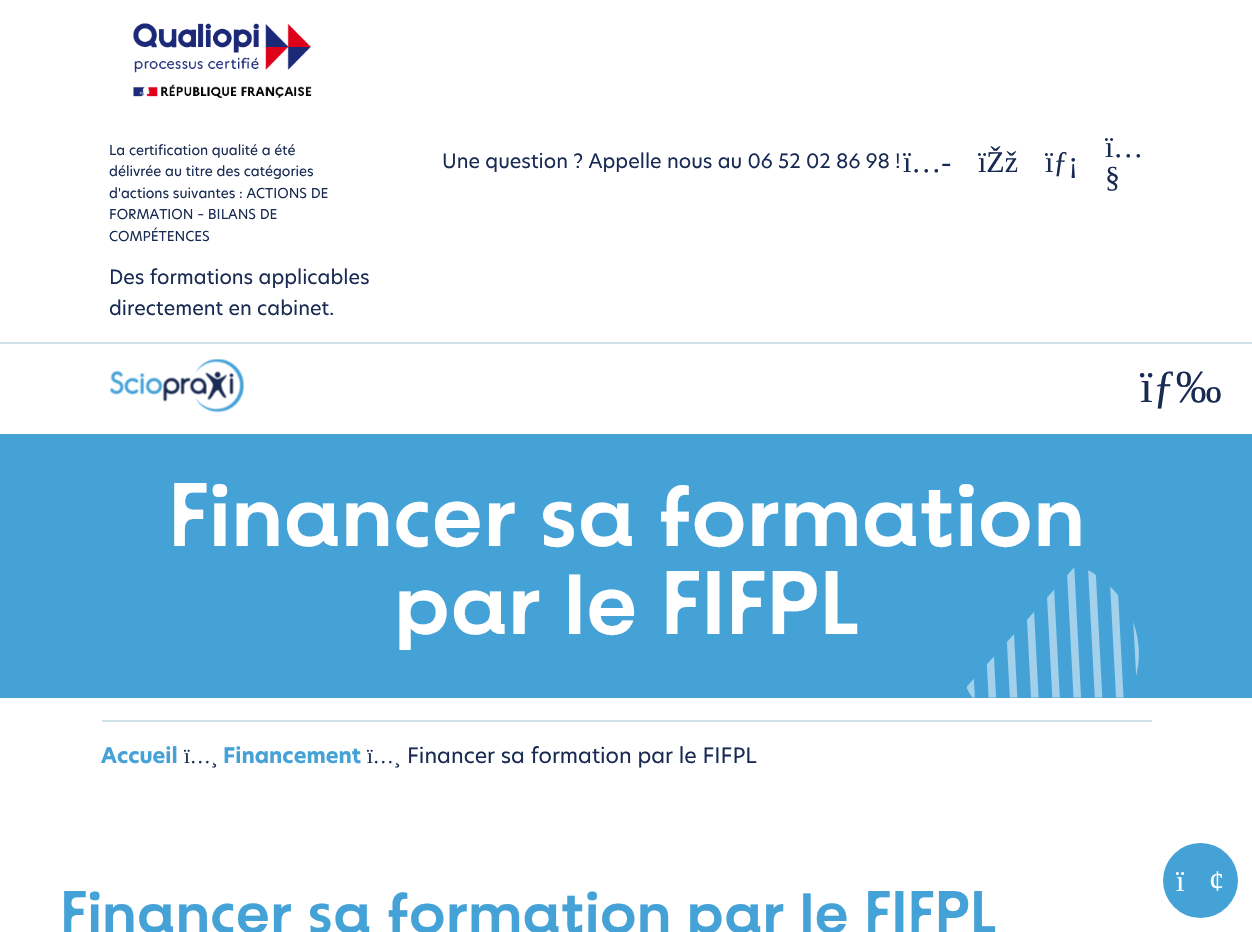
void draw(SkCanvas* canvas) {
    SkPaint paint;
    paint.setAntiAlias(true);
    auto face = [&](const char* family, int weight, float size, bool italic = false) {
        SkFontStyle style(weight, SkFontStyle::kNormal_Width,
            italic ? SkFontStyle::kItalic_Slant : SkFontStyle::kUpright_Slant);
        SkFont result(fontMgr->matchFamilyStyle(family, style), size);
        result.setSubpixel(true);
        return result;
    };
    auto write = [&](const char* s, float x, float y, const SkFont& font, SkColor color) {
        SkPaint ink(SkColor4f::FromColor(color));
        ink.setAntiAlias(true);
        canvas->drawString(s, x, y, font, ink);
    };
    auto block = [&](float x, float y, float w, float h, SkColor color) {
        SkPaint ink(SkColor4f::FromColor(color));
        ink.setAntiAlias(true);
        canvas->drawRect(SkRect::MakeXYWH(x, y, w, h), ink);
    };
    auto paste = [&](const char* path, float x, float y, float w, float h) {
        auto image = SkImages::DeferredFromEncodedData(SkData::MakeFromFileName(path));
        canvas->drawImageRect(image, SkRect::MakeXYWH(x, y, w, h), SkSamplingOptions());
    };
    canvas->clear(SK_ColorWHITE);
    block(0, 342, 1252, 2, SkColorSetRGB(210, 225, 231));
    paste("pic1.png", 133, 23, 179, 75);
    auto kFont1 = face("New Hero", 400, 13.5f);
    write("La certification qualité a été", 109, 155, kFont1, SkColorSetRGB(25, 43, 83));
    write("délivrée au titre des catégories", 109, 176, kFont1, SkColorSetRGB(25, 43, 83));
    write("d'actions suivantes : ACTIONS DE", 109, 198, kFont1, SkColorSetRGB(25, 43, 83));
    write("FORMATION – BILANS DE", 109, 219, kFont1, SkColorSetRGB(25, 43, 83));
    write("COMPÉTENCES", 109, 241, kFont1, SkColorSetRGB(25, 43, 83));
    auto kFont2 = face("New Hero", 400, 19.5f);
    write("Des formations applicables", 109, 284, kFont2, SkColorSetRGB(25, 43, 83));
    write("directement en cabinet.", 109, 315, kFont2, SkColorSetRGB(25, 43, 83));
    write("Une question ? Appelle nous au 06 52 02 86 98 !", 442, 168, kFont2, SkColorSetRGB(25, 43, 83));
    auto kFont3 = face("Liberation Serif", 400, 30);
    write("ï…-", 903, 172, kFont3, SkColorSetRGB(25, 43, 83));
    write("ïŽž", 978, 172, kFont3, SkColorSetRGB(25, 43, 83));
    write("ïƒ¡", 1045, 172, kFont3, SkColorSetRGB(25, 43, 83));
    write("ï…", 1105, 157, kFont3, SkColorSetRGB(25, 43, 83));
    write("§", 1105, 187, kFont3, SkColorSetRGB(25, 43, 83));
    paste("pic2.png", 110, 359, 134, 54);
    auto kFont4 = face("Liberation Serif", 400, 46);
    write("ïƒ‰", 1140, 402, kFont4, SkColorSetRGB(25, 43, 83));
    block(0, 434, 1252, 264, SkColorSetRGB(69, 162, 215));
    auto kFont5 = face("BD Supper", 400, 90);
    write("Financer sa formation", 168, 546, kFont5, SK_ColorWHITE);
    write("par le FIFPL", 394, 634, kFont5, SK_ColorWHITE);
    paste("pic3.png", 966, 567, 173, 131);
    block(102, 720, 1050, 2, SkColorSetRGB(210, 225, 231));
    auto kFont6 = face("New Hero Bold", 700, 21);
    write("Accueil", 101, 763, kFont6, SkColorSetRGB(69, 162, 215));
    auto kFont7 = face("Liberation Serif", 400, 21);
    write("ï…¸", 184, 763, kFont7, SkColorSetRGB(25, 43, 83));
    write("Financement", 223, 763, kFont6, SkColorSetRGB(69, 162, 215));
    write("ï…¸", 367, 763, kFont7, SkColorSetRGB(25, 43, 83));
    auto kFont8 = face("New Hero", 400, 21);
    write("Financer sa formation par le FIFPL", 407, 763, kFont8, SkColorSetRGB(25, 43, 83));
    auto kFont9 = face("BD Supper", 400, 60);
    write("Financer sa formation par le FIFPL", 60, 933, kFont9, SkColorSetRGB(69, 162, 215));
    paint.setColor(SkColorSetRGB(69, 162, 215));
    canvas->drawCircle(1200.5f, 880.5f, 37.5f, paint);
    write("ï", 1176, 891, kFont3, SK_ColorWHITE);
    write("¢", 1209, 891, kFont3, SK_ColorWHITE);
}
